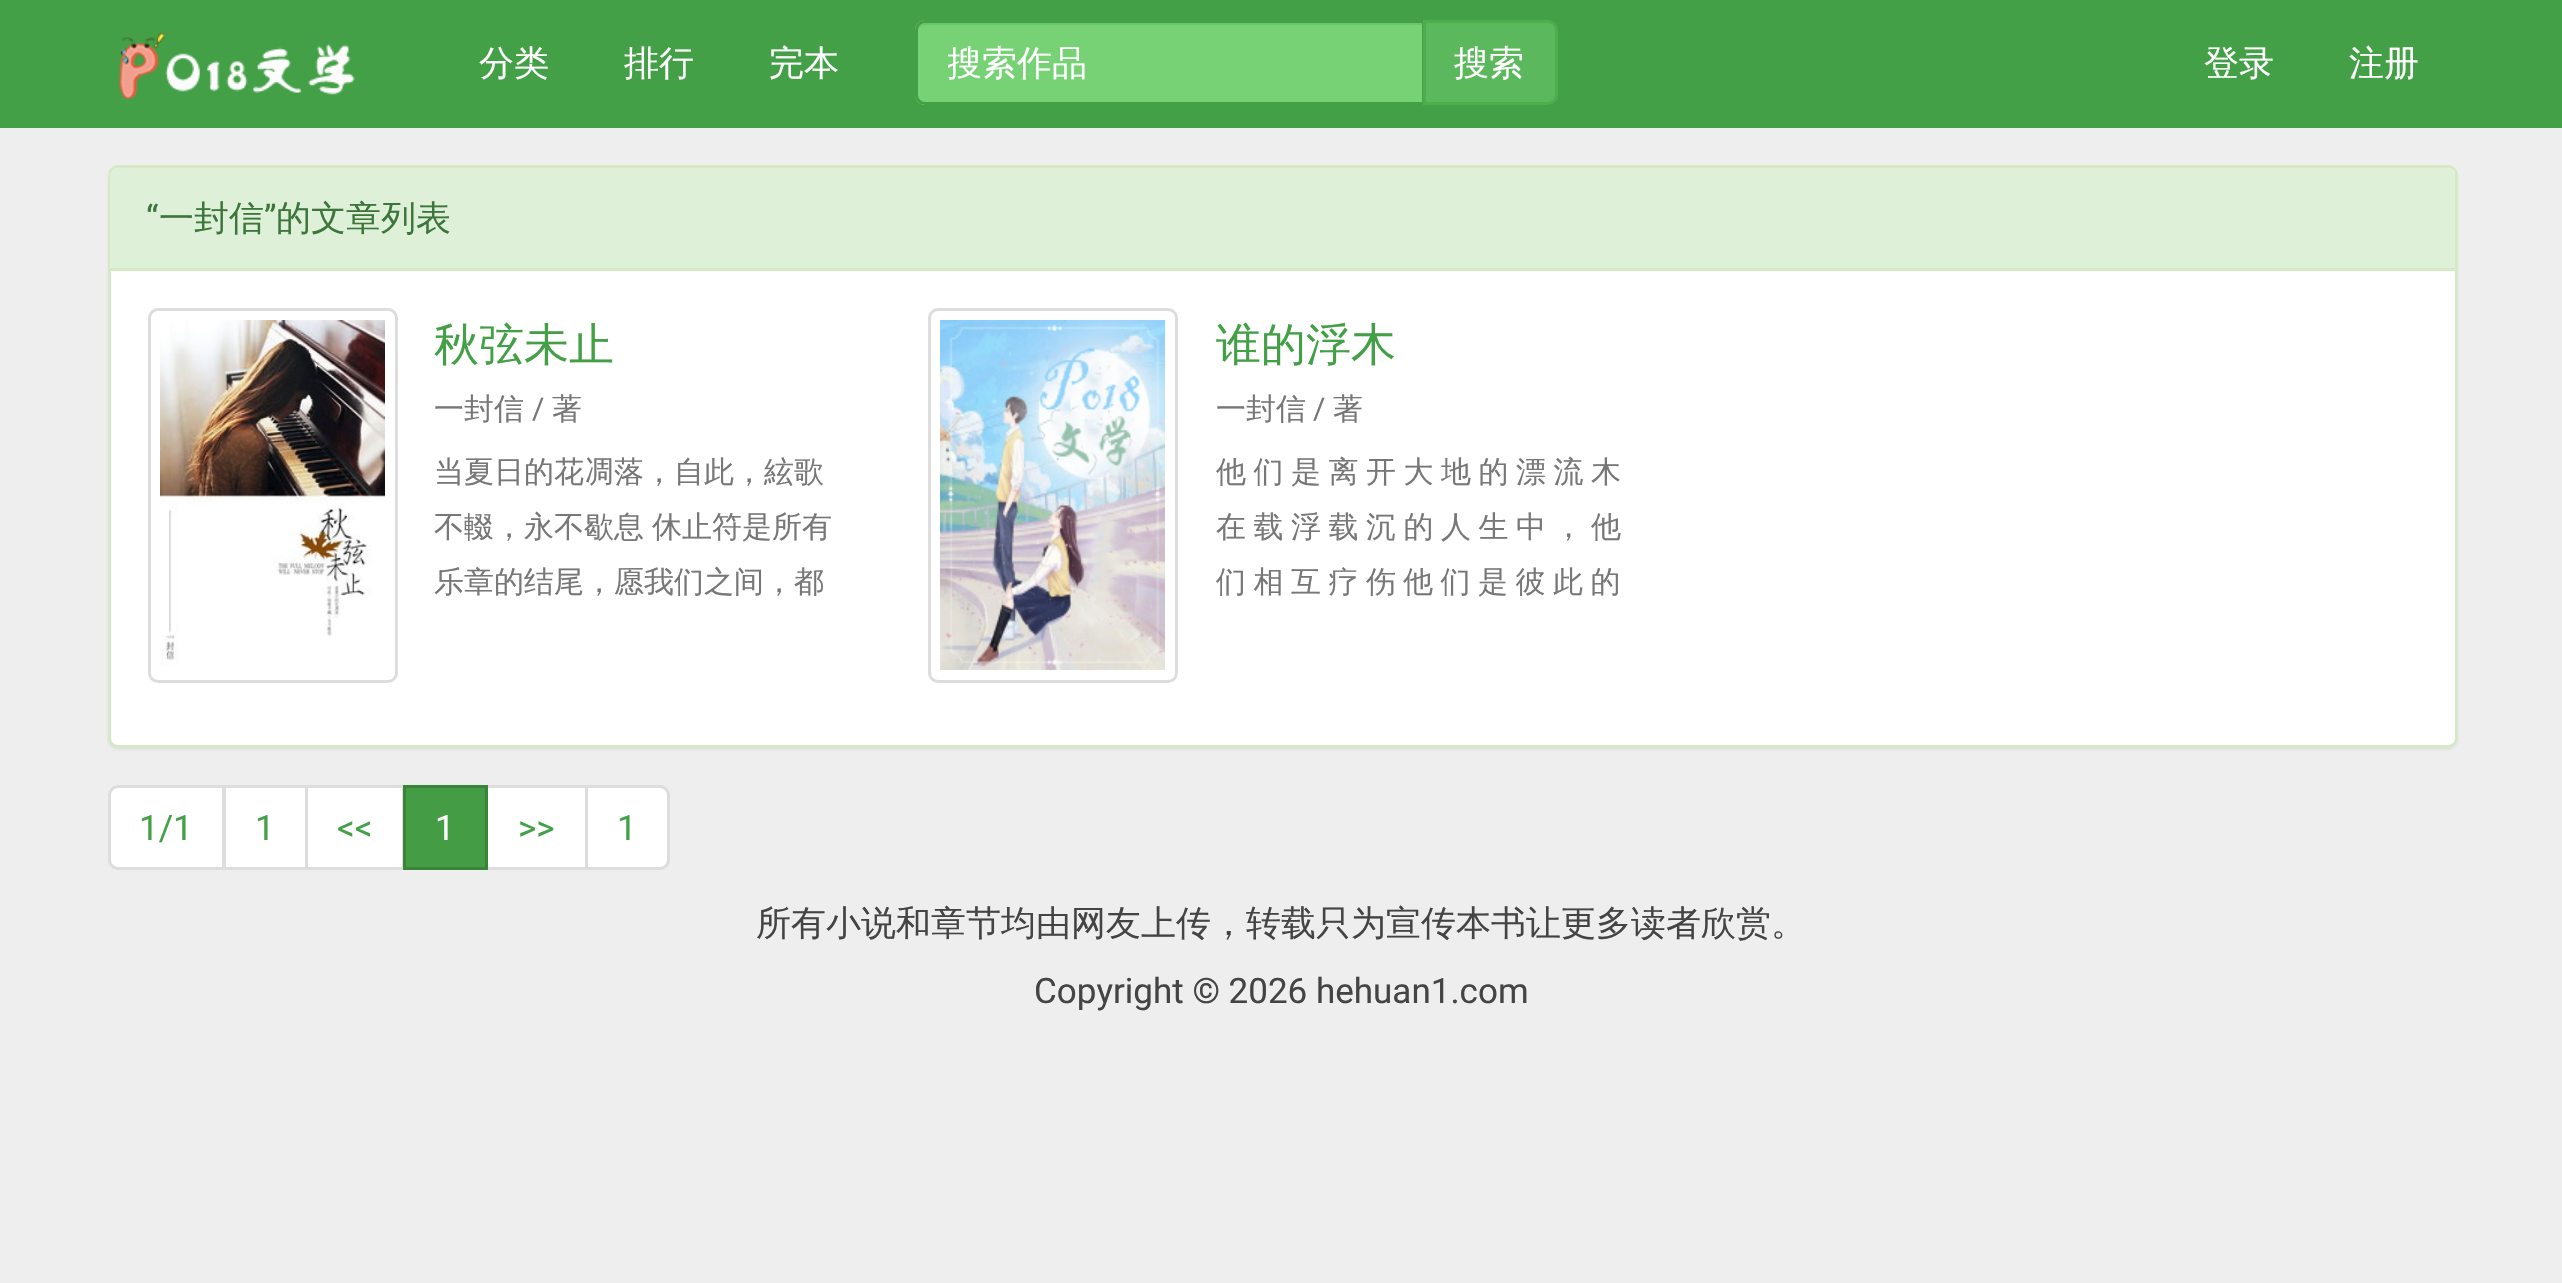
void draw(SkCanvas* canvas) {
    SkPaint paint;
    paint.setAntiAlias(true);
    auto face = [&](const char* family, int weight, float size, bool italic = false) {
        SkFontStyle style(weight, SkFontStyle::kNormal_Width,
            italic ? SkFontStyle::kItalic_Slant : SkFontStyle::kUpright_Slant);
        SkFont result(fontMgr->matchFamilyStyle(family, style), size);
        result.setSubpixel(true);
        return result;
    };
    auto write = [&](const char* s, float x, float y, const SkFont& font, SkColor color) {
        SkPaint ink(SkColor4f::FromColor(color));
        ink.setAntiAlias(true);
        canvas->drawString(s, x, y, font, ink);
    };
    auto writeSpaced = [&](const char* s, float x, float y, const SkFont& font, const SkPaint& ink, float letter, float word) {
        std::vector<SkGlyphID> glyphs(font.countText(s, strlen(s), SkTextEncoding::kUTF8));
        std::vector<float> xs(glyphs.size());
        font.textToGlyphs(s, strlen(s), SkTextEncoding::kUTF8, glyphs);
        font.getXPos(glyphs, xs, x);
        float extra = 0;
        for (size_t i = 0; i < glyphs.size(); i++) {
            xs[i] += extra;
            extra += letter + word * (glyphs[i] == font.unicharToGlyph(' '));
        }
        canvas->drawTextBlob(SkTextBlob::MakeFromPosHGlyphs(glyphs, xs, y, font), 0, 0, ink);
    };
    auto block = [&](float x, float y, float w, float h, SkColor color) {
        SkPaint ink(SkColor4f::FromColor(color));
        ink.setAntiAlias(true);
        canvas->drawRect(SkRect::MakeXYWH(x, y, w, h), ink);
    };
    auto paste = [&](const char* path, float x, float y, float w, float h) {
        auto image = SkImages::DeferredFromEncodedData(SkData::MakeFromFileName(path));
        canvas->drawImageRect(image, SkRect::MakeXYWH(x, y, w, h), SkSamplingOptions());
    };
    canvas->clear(SkColorSetRGB(238, 238, 238));
    block(0, 0, 2562, 128, SkColorSetRGB(67, 160, 71));
    paste("pic1.png", 119, 32, 236, 67);
    auto kFont1 = face("WenQuanYi Zen Hei", 500, 35);
    write("分类", 479, 75, kFont1, SK_ColorWHITE);
    write("排行", 624, 75, kFont1, SK_ColorWHITE);
    write("完本", 769, 75, kFont1, SK_ColorWHITE);
    paint.setColor(SkColorSetRGB(118, 210, 117));
    canvas->drawPath(SkPathBuilder().moveTo(925, 20).lineTo(1425, 20).lineTo(1425, 105).lineTo(925, 105).cubicTo(919.5f, 105, 915, 100.5f, 915, 95).lineTo(915, 30).cubicTo(915, 24.5f, 919.5f, 20, 925, 20).close().detach(), paint);
    paint.setColor(SkColorSetRGB(109, 194, 108));
    canvas->drawPath(SkPathBuilder().moveTo(925, 25).lineTo(1422, 25).lineTo(1422, 103).lineTo(1423, 103).lineTo(1423, 23).lineTo(926, 23).cubicTo(922, 23, 918, 27, 918, 31).lineTo(918, 32).cubicTo(918, 28, 921, 25, 925, 25).close().detach(), paint);
    paint.setStyle(SkPaint::kStroke_Style);
    paint.setStrokeWidth(3);
    paint.setColor(SkColorSetRGB(67, 160, 71));
    canvas->drawPath(SkPathBuilder().moveTo(925, 21.5f).lineTo(1423.5f, 21.5f).lineTo(1423.5f, 103.5f).lineTo(925, 103.5f).cubicTo(920.5f, 103.5f, 916.5f, 99.5f, 916.5f, 95).lineTo(916.5f, 30).cubicTo(916.5f, 25.5f, 920.5f, 21.5f, 925, 21.5f).close().detach(), paint);
    canvas->save();
    canvas->clipRect(SkRect::MakeXYWH(948, 43, 435, 45));
    write("搜索作品", 947, 75, kFont1, SK_ColorWHITE);
    canvas->restore();
    paint.setStyle(SkPaint::kFill_Style);
    paint.setColor(SkColorSetRGB(92, 184, 92));
    canvas->drawPath(SkPathBuilder().moveTo(1424.5f, 21.5f).lineTo(1548, 21.5f).cubicTo(1552.5f, 21.5f, 1556.5f, 25.5f, 1556.5f, 30).lineTo(1556.5f, 95).cubicTo(1556.5f, 99.5f, 1552.5f, 103.5f, 1548, 103.5f).lineTo(1424.5f, 103.5f).close().detach(), paint);
    paint.setStyle(SkPaint::kStroke_Style);
    paint.setColor(SkColorSetRGB(76, 174, 76));
    canvas->drawPath(SkPathBuilder().moveTo(1424.5f, 21.5f).lineTo(1548, 21.5f).cubicTo(1552.5f, 21.5f, 1556.5f, 25.5f, 1556.5f, 30).lineTo(1556.5f, 95).cubicTo(1556.5f, 99.5f, 1552.5f, 103.5f, 1548, 103.5f).lineTo(1424.5f, 103.5f).close().detach(), paint);
    write("搜索", 1454, 75, kFont1, SK_ColorWHITE);
    write("登录", 2204, 75, kFont1, SK_ColorWHITE);
    write("注册", 2349, 75, kFont1, SK_ColorWHITE);
    paint.setStyle(SkPaint::kFill_Style);
    paint.setColor(SkColorSetARGB(13, 0, 0, 0));
    paint.setMaskFilter(SkMaskFilter::MakeBlur(kNormal_SkBlurStyle, 1));
    canvas->drawRoundRect(SkRect::MakeXYWH(108, 168, 2350, 582), 10, 10, paint);
    paint.setMaskFilter(nullptr);
    paint.setColor(SK_ColorWHITE);
    canvas->drawRoundRect(SkRect::MakeXYWH(109.5f, 166.5f, 2347, 580), 8.5f, 8.5f, paint);
    paint.setStyle(SkPaint::kStroke_Style);
    paint.setColor(SkColorSetRGB(214, 233, 198));
    canvas->drawRoundRect(SkRect::MakeXYWH(109.5f, 166.5f, 2347, 580), 8.5f, 8.5f, paint);
    paint.setStyle(SkPaint::kFill_Style);
    paint.setColor(SkColorSetRGB(223, 240, 216));
    canvas->drawPath(SkPathBuilder().moveTo(118, 168).lineTo(2447, 168).cubicTo(2451.5f, 168, 2455, 171.5f, 2455, 176).lineTo(2455, 270).lineTo(110, 270).lineTo(110, 176).cubicTo(110, 171.5f, 113.5f, 168, 118, 168).close().detach(), paint);
    block(110, 268, 2345, 3, SkColorSetRGB(214, 233, 198));
    auto kFont2 = face("Roboto", 400, 35);
    write("“", 146, 230, kFont2, SkColorSetRGB(60, 118, 61));
    write("一封信", 159, 230, kFont1, SkColorSetRGB(60, 118, 61));
    write("”", 264, 230, kFont2, SkColorSetRGB(60, 118, 61));
    write("的文章列表", 276, 230, kFont1, SkColorSetRGB(60, 118, 61));
    paint.setStyle(SkPaint::kStroke_Style);
    paint.setColor(SkColorSetRGB(221, 221, 221));
    canvas->drawRoundRect(SkRect::MakeXYWH(149.5f, 309.5f, 247, 372), 8.5f, 8.5f, paint);
    paste("pic2.png", 160, 320, 225, 346);
    auto kFont3 = face("WenQuanYi Zen Hei", 500, 45);
    write("秋弦未止", 434, 360, kFont3, SkColorSetRGB(67, 160, 71));
    auto kFont4 = face("WenQuanYi Zen Hei", 500, 30);
    write("一封信", 434, 419, kFont4, SkColorSetRGB(119, 119, 119));
    auto kFont5 = face("Roboto", 400, 30);
    write("/", 532, 419, kFont5, SkColorSetRGB(119, 119, 119));
    write("著", 552, 419, kFont4, SkColorSetRGB(119, 119, 119));
    write("当夏日的花凋落，自此，絃歌", 434, 482, kFont4, SkColorSetRGB(119, 119, 119));
    write("不輟，永不歇息", 434, 537, kFont4, SkColorSetRGB(119, 119, 119));
    write("休止符是所有", 652, 537, kFont4, SkColorSetRGB(119, 119, 119));
    write("乐章的结尾，愿我们之间，都", 434, 592, kFont4, SkColorSetRGB(119, 119, 119));
    canvas->drawRoundRect(SkRect::MakeXYWH(929.5f, 309.5f, 247, 372), 8.5f, 8.5f, paint);
    paste("pic3.png", 940, 320, 225, 350);
    write("谁的浮木", 1216, 360, kFont3, SkColorSetRGB(67, 160, 71));
    write("一封信", 1216, 419, kFont4, SkColorSetRGB(119, 119, 119));
    write("/", 1313, 419, kFont5, SkColorSetRGB(119, 119, 119));
    write("著", 1333, 419, kFont4, SkColorSetRGB(119, 119, 119));
    paint.setStyle(SkPaint::kFill_Style);
    paint.setColor(SkColorSetRGB(119, 119, 119));
    writeSpaced("他 们 是 离 开 大 地 的 漂 流 木", 1216, 482, kFont4, paint, 0, -1.5f);
    writeSpaced("在 载 浮 载 沉 的 人 生 中 ， 他", 1216, 537, kFont4, paint, 0, -1.5f);
    writeSpaced("们 相 互 疗 伤", 1216, 592, kFont4, paint, 0, -1.5f);
    writeSpaced("他 们 是 彼 此 的", 1403, 592, kFont4, paint, 0, -1.5f);
    paint.setColor(SK_ColorWHITE);
    canvas->drawPath(SkPathBuilder().moveTo(118, 786.5f).lineTo(223.5f, 786.5f).lineTo(223.5f, 868.5f).lineTo(118, 868.5f).cubicTo(113.5f, 868.5f, 109.5f, 864.5f, 109.5f, 860).lineTo(109.5f, 795).cubicTo(109.5f, 790.5f, 113.5f, 786.5f, 118, 786.5f).close().detach(), paint);
    paint.setStyle(SkPaint::kStroke_Style);
    paint.setColor(SkColorSetRGB(221, 221, 221));
    canvas->drawPath(SkPathBuilder().moveTo(118, 786.5f).lineTo(223.5f, 786.5f).lineTo(223.5f, 868.5f).lineTo(118, 868.5f).cubicTo(113.5f, 868.5f, 109.5f, 864.5f, 109.5f, 860).lineTo(109.5f, 795).cubicTo(109.5f, 790.5f, 113.5f, 786.5f, 118, 786.5f).close().detach(), paint);
    write("1/1", 139, 840, kFont2, SkColorSetRGB(67, 160, 71));
    paint.setStyle(SkPaint::kFill_Style);
    paint.setColor(SK_ColorWHITE);
    canvas->drawRect(SkRect::MakeXYWH(224.5f, 786.5f, 82, 82), paint);
    paint.setStyle(SkPaint::kStroke_Style);
    paint.setColor(SkColorSetRGB(221, 221, 221));
    canvas->drawRect(SkRect::MakeXYWH(224.5f, 786.5f, 82, 82), paint);
    write("1", 255, 840, kFont2, SkColorSetRGB(67, 160, 71));
    paint.setStyle(SkPaint::kFill_Style);
    paint.setColor(SK_ColorWHITE);
    canvas->drawRect(SkRect::MakeXYWH(306.5f, 786.5f, 97, 82), paint);
    paint.setStyle(SkPaint::kStroke_Style);
    paint.setColor(SkColorSetRGB(221, 221, 221));
    canvas->drawRect(SkRect::MakeXYWH(306.5f, 786.5f, 97, 82), paint);
    write("<<", 337, 840, kFont2, SkColorSetRGB(67, 160, 71));
    paint.setStyle(SkPaint::kFill_Style);
    paint.setColor(SK_ColorWHITE);
    canvas->drawRect(SkRect::MakeXYWH(486.5f, 786.5f, 100, 82), paint);
    paint.setStyle(SkPaint::kStroke_Style);
    paint.setColor(SkColorSetRGB(221, 221, 221));
    canvas->drawRect(SkRect::MakeXYWH(486.5f, 786.5f, 100, 82), paint);
    paint.setStyle(SkPaint::kFill_Style);
    paint.setColor(SkColorSetRGB(68, 157, 68));
    canvas->drawRect(SkRect::MakeXYWH(404.5f, 786.5f, 82, 82), paint);
    paint.setStyle(SkPaint::kStroke_Style);
    paint.setColor(SkColorSetRGB(57, 132, 57));
    canvas->drawRect(SkRect::MakeXYWH(404.5f, 786.5f, 82, 82), paint);
    write("1", 435, 840, kFont2, SK_ColorWHITE);
    write(">>", 518, 840, kFont2, SkColorSetRGB(67, 160, 71));
    paint.setStyle(SkPaint::kFill_Style);
    paint.setColor(SK_ColorWHITE);
    canvas->drawPath(SkPathBuilder().moveTo(586.5f, 786.5f).lineTo(660, 786.5f).cubicTo(664.5f, 786.5f, 668.5f, 790.5f, 668.5f, 795).lineTo(668.5f, 860).cubicTo(668.5f, 864.5f, 664.5f, 868.5f, 660, 868.5f).lineTo(586.5f, 868.5f).close().detach(), paint);
    paint.setStyle(SkPaint::kStroke_Style);
    paint.setColor(SkColorSetRGB(221, 221, 221));
    canvas->drawPath(SkPathBuilder().moveTo(586.5f, 786.5f).lineTo(660, 786.5f).cubicTo(664.5f, 786.5f, 668.5f, 790.5f, 668.5f, 795).lineTo(668.5f, 860).cubicTo(668.5f, 864.5f, 664.5f, 868.5f, 660, 868.5f).lineTo(586.5f, 868.5f).close().detach(), paint);
    write("1", 617, 840, kFont2, SkColorSetRGB(67, 160, 71));
    write("所有小说和章节均由网友上传，转载只为宣传本书让更多读者欣赏。", 756, 935, kFont1, SkColorSetRGB(68, 68, 68));
    write("Copyright © 2026 hehuan1.com", 1034, 1003, kFont2, SkColorSetRGB(68, 68, 68));
}
